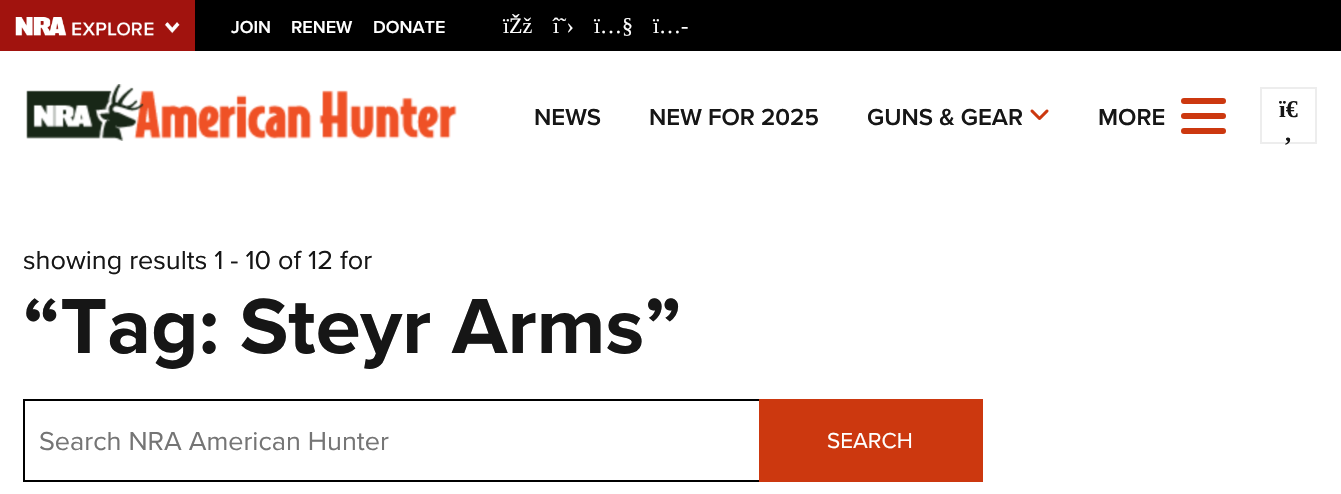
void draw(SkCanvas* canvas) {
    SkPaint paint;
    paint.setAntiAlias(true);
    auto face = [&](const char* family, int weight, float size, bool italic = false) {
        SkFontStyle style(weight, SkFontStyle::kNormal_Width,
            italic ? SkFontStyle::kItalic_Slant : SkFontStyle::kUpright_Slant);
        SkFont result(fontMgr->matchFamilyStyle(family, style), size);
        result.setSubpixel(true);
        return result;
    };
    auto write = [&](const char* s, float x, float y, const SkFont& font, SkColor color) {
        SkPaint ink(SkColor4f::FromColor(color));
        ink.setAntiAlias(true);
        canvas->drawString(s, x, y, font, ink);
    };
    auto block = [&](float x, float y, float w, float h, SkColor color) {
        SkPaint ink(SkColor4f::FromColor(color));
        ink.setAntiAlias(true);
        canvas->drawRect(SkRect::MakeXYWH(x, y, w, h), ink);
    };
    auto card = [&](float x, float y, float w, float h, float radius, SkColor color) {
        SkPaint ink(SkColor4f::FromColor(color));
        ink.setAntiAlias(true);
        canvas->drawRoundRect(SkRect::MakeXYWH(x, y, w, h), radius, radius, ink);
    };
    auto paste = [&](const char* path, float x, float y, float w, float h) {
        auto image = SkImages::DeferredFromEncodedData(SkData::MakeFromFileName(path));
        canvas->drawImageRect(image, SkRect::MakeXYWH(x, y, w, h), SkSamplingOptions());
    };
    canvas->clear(SK_ColorWHITE);
    block(195, 0, 1146, 51, SK_ColorBLACK);
    block(0, 0, 195, 51, SkColorSetRGB(161, 19, 14));
    paste("pic1.png", 15, 17, 165, 20);
    auto kFont1 = face("Proxima Nova", 600, 18);
    write("JOIN", 231, 33, kFont1, SK_ColorWHITE);
    write("RENEW", 291, 33, kFont1, SK_ColorWHITE);
    write("DONATE", 373, 33, kFont1, SK_ColorWHITE);
    auto kFont2 = face("Liberation Serif", 400, 22);
    write("ïŽž", 503, 33, kFont2, SK_ColorWHITE);
    write("î˜›", 553, 33, kFont2, SK_ColorWHITE);
    write("ï…§", 594, 33, kFont2, SK_ColorWHITE);
    write("ï…-", 653, 33, kFont2, SK_ColorWHITE);
    paste("pic2.png", 26, 84, 431, 57);
    auto kFont3 = face("Proxima Nova", 600, 24);
    write("NEWS", 534, 125, kFont3, SkColorSetRGB(22, 22, 22));
    write("NEW FOR 2025", 649, 125, kFont3, SkColorSetRGB(22, 22, 22));
    write("GUNS & GEAR", 867, 125, kFont3, SkColorSetRGB(22, 22, 22));
    paste("pic3.png", 1030, 109, 19, 11);
    write("MORE", 1098, 125, kFont3, SkColorSetRGB(22, 22, 22));
    card(1181, 113, 45, 6, 3, SkColorSetRGB(204, 56, 15));
    card(1181, 98, 45, 6, 3, SkColorSetRGB(204, 56, 15));
    card(1181, 128, 45, 6, 3, SkColorSetRGB(204, 56, 15));
    paint.setStyle(SkPaint::kStroke_Style);
    paint.setStrokeWidth(2);
    paint.setColor(SkColorSetRGB(237, 237, 237));
    canvas->drawRect(SkRect::MakeXYWH(1261, 88, 55, 55), paint);
    auto kFont4 = face("Liberation Serif", 700, 24);
    write("ï€", 1279, 117, kFont4, SkColorSetRGB(22, 22, 22));
    write("‚", 1284, 141, kFont4, SkColorSetRGB(22, 22, 22));
    auto kFont5 = face("Proxima Nova", 400, 27);
    write("showing results 1 - 10 of 12 for", 23, 269, kFont5, SkColorSetRGB(22, 22, 22));
    auto kFont6 = face("Proxima Nova", 700, 81);
    write("“Tag: Steyr Arms”", 23, 353, kFont6, SkColorSetRGB(22, 22, 22));
    paint.setColor(SK_ColorBLACK);
    canvas->drawRect(SkRect::MakeXYWH(24, 400, 736, 81), paint);
    write("Search NRA American Hunter", 39, 450, kFont5, SkColorSetRGB(117, 117, 117));
    block(759, 399, 224, 83, SkColorSetRGB(204, 56, 15));
    auto kFont7 = face("Proxima Nova", 400, 22.5f);
    write("SEARCH", 827, 448, kFont7, SK_ColorWHITE);
}
